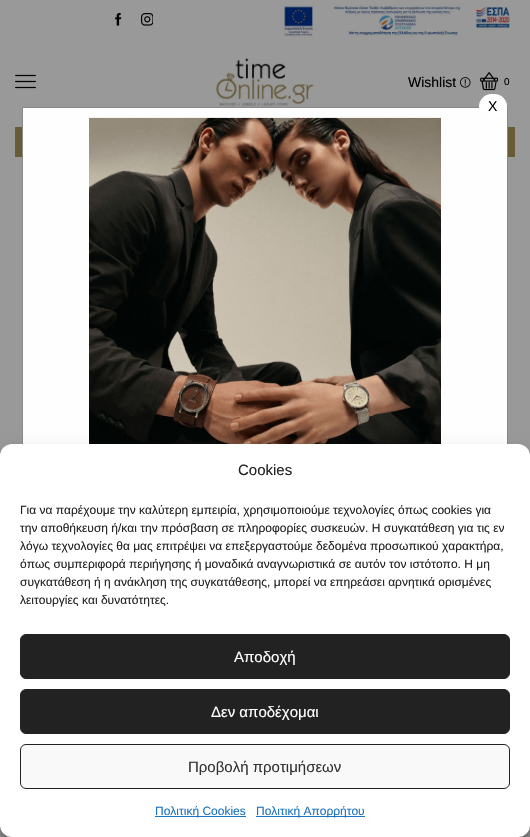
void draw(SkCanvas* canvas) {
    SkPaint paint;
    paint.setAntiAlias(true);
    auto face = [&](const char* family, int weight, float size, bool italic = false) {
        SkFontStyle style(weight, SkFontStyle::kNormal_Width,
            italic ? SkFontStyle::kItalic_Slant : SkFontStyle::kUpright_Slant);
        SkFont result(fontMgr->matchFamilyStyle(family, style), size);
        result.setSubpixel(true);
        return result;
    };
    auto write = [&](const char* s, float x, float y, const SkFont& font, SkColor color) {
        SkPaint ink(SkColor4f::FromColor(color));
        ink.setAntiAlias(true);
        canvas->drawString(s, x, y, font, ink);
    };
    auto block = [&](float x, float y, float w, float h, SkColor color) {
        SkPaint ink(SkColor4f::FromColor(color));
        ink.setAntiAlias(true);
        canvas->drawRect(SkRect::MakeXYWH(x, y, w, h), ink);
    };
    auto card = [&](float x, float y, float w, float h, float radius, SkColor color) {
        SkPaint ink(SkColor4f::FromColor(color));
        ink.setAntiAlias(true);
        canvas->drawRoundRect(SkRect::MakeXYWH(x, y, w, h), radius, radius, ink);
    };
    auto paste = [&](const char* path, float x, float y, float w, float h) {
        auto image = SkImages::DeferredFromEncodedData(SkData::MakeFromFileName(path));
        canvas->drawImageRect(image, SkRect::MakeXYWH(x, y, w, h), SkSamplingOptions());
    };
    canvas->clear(SkColorSetRGB(153, 153, 153));
    paste("pic1.png", 115, 13, 7, 13);
    paste("pic2.png", 141, 13, 12, 13);
    paste("pic3.png", 284, 5, 226, 32);
    paste("pic4.png", 15, 74, 21, 15);
    paste("pic5.png", 216, 58, 98, 49);
    auto kFont1 = face("Liberation Sans", 400, 14);
    write("Wishlist", 408, 87, kFont1, SK_ColorBLACK);
    paste("pic6.png", 460, 77, 11, 11);
    paste("pic7.png", 480, 72, 19, 19);
    auto kFont2 = face("Liberation Sans", 400, 10);
    write("0", 504, 85, kFont2, SK_ColorBLACK);
    block(15, 127, 500, 30, SkColorSetRGB(103, 91, 56));
    block(23, 108, 484, 336, SkColorSetRGB(254, 254, 254));
    paint.setStyle(SkPaint::kStroke_Style);
    paint.setStrokeWidth(1);
    paint.setColor(SkColorSetRGB(136, 136, 136));
    canvas->drawRect(SkRect::MakeXYWH(22.5f, 107.5f, 485, 622), paint);
    card(479, 94, 28, 25, 12.5f, SK_ColorWHITE);
    write("X", 488, 111, kFont1, SK_ColorBLACK);
    paste("pic8.png", 89, 117, 352, 327);
    paint.setStyle(SkPaint::kFill_Style);
    paint.setColor(SkColorSetARGB(59, 0, 0, 0));
    paint.setMaskFilter(SkMaskFilter::MakeBlur(kNormal_SkBlurStyle, 3));
    canvas->drawRoundRect(SkRect::MakeXYWH(0, 450, 530, 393), 12, 12, paint);
    paint.setMaskFilter(nullptr);
    paint.setColor(SkColorSetARGB(48, 0, 0, 0));
    paint.setMaskFilter(SkMaskFilter::MakeBlur(kNormal_SkBlurStyle, 10));
    canvas->drawRoundRect(SkRect::MakeXYWH(0, 454, 530, 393), 12, 12, paint);
    paint.setMaskFilter(nullptr);
    card(0, 444, 530, 393, 12, SK_ColorWHITE);
    auto kFont3 = face("Liberation Sans", 400, 15);
    write("Cookies", 238, 475, kFont3, SkColorSetRGB(34, 34, 34));
    auto kFont4 = face("Liberation Sans", 400, 12);
    write("Για να παρέχουμε την καλύτερη εμπειρία, χρησιμοποιούμε τεχνολογίες όπως cookies για", 20, 514, kFont4, SkColorSetRGB(34, 34, 34));
    write("την αποθήκευση ή/και την πρόσβαση σε πληροφορίες συσκευών. Η συγκατάθεση για τις εν", 20, 532, kFont4, SkColorSetRGB(34, 34, 34));
    write("λόγω τεχνολογίες θα μας επιτρέψει να επεξεργαστούμε δεδομένα προσωπικού χαρακτήρα,", 20, 550, kFont4, SkColorSetRGB(34, 34, 34));
    write("όπως συμπεριφορά περιήγησης ή μοναδικά αναγνωριστικά σε αυτόν τον ιστότοπο. Η μη", 20, 568, kFont4, SkColorSetRGB(34, 34, 34));
    write("συγκατάθεση ή η ανάκληση της συγκατάθεσης, μπορεί να επηρεάσει αρνητικά ορισμένες", 20, 586, kFont4, SkColorSetRGB(34, 34, 34));
    write("λειτουργίες και δυνατότητες.", 20, 604, kFont4, SkColorSetRGB(34, 34, 34));
    paint.setColor(SkColorSetRGB(34, 34, 34));
    canvas->drawRoundRect(SkRect::MakeXYWH(20.5f, 634.5f, 489, 44), 5.5f, 5.5f, paint);
    paint.setStyle(SkPaint::kStroke_Style);
    canvas->drawRoundRect(SkRect::MakeXYWH(20.5f, 634.5f, 489, 44), 5.5f, 5.5f, paint);
    write("Αποδοχή", 234, 662, kFont3, SK_ColorWHITE);
    paint.setStyle(SkPaint::kFill_Style);
    canvas->drawRoundRect(SkRect::MakeXYWH(20.5f, 689.5f, 489, 44), 5.5f, 5.5f, paint);
    paint.setStyle(SkPaint::kStroke_Style);
    canvas->drawRoundRect(SkRect::MakeXYWH(20.5f, 689.5f, 489, 44), 5.5f, 5.5f, paint);
    write("Δεν αποδέχομαι", 211, 717, kFont3, SK_ColorWHITE);
    paint.setStyle(SkPaint::kFill_Style);
    paint.setColor(SkColorSetRGB(249, 249, 249));
    canvas->drawRoundRect(SkRect::MakeXYWH(20.5f, 744.5f, 489, 44), 5.5f, 5.5f, paint);
    paint.setStyle(SkPaint::kStroke_Style);
    paint.setColor(SkColorSetRGB(34, 34, 34));
    canvas->drawRoundRect(SkRect::MakeXYWH(20.5f, 744.5f, 489, 44), 5.5f, 5.5f, paint);
    write("Προβολή προτιμήσεων", 188, 772, kFont3, SkColorSetRGB(51, 51, 51));
    block(155, 816, 91, 1, SkColorSetRGB(30, 115, 190));
    write("Πολιτική Cookies", 155, 815, kFont4, SkColorSetRGB(30, 115, 190));
    block(256, 816, 109, 1, SkColorSetRGB(30, 115, 190));
    write("Πολιτική Απορρήτου", 256, 815, kFont4, SkColorSetRGB(30, 115, 190));
}
